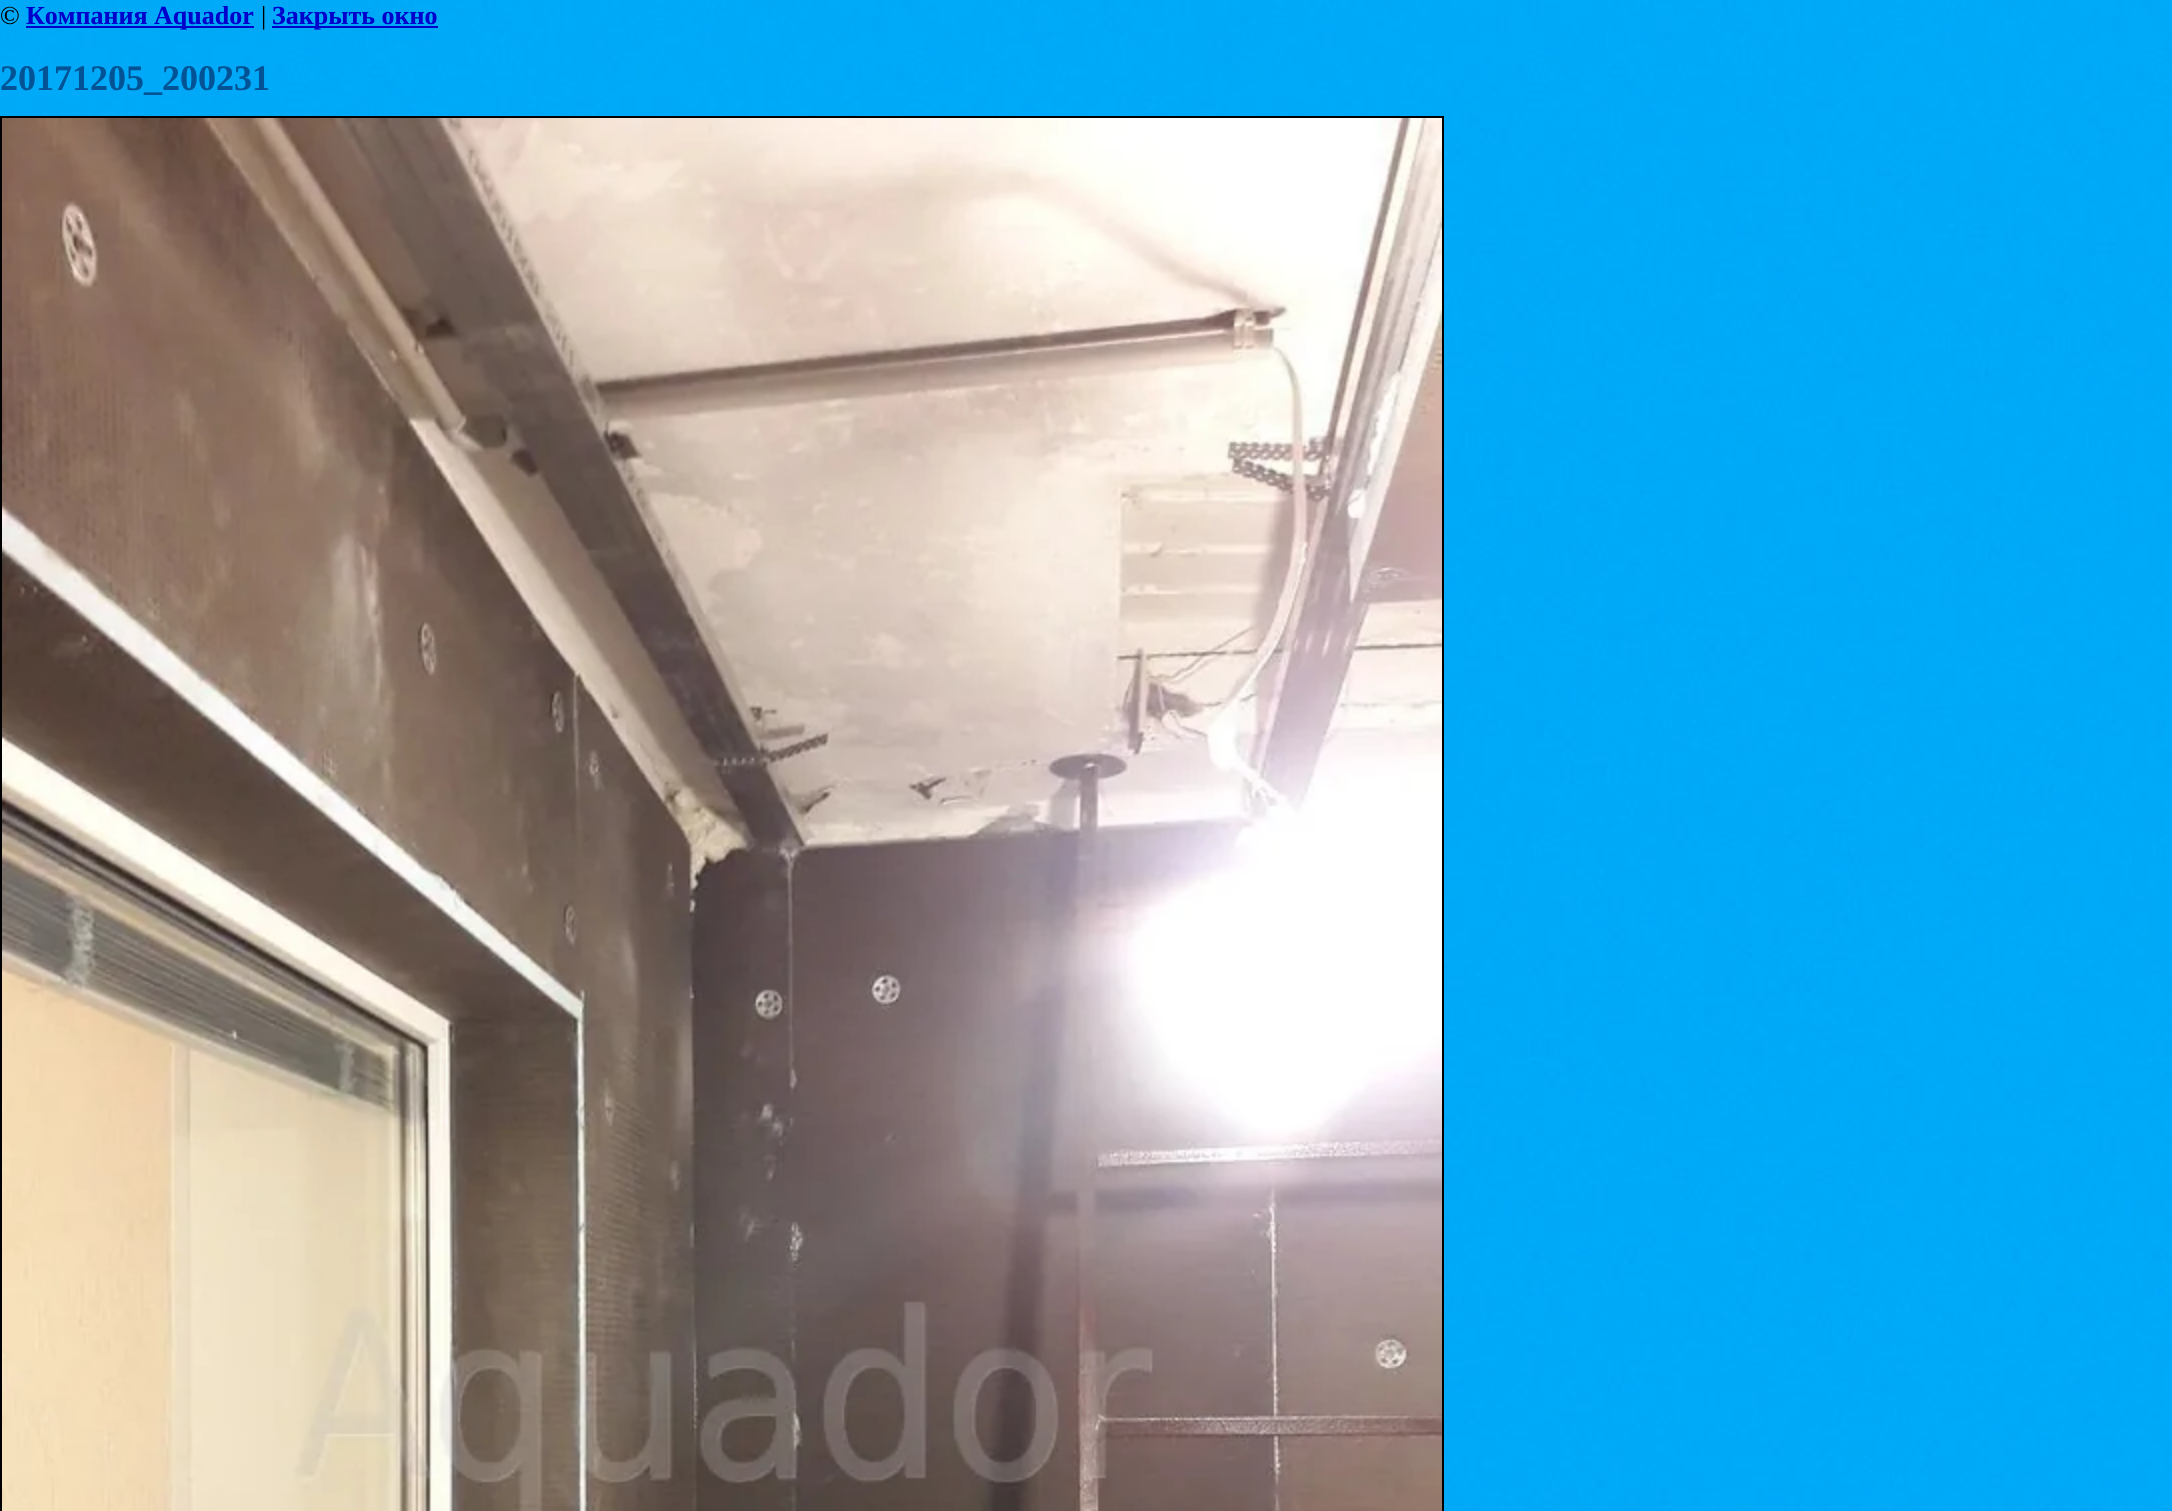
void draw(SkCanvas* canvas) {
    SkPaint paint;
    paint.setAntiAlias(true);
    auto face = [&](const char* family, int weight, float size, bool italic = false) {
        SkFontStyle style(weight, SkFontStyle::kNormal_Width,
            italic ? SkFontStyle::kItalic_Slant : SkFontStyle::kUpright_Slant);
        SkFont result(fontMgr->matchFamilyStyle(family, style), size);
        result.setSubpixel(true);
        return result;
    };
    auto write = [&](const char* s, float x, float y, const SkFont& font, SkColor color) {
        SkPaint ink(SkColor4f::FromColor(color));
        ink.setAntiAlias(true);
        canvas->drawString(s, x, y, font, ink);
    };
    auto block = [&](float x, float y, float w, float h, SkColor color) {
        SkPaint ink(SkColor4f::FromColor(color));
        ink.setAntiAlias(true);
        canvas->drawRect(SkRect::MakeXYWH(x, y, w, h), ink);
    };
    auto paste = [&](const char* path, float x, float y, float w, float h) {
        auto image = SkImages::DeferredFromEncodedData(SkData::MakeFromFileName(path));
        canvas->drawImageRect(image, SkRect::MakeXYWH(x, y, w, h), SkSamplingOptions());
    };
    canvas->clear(SK_ColorWHITE);
    paste("pic1.png", 0, 0, 2172, 1511);
    auto kFont1 = face("Liberation Serif", 400, 26);
    write("©", 0, 24, kFont1, SK_ColorBLACK);
    block(26, 26, 228, 2, SkColorSetRGB(0, 0, 204));
    auto kFont2 = face("Liberation Serif", 700, 26);
    write("Компания Aquador", 26, 24, kFont2, SkColorSetRGB(0, 0, 204));
    write("|", 261, 24, kFont1, SK_ColorBLACK);
    block(272, 26, 166, 2, SkColorSetRGB(0, 0, 204));
    write("Закрыть окно", 272, 24, kFont2, SkColorSetRGB(0, 0, 204));
    auto kFont3 = face("Liberation Serif", 700, 36);
    write("20171205_200231", 0, 90, kFont3, SkColorSetRGB(2, 83, 149));
    paint.setStyle(SkPaint::kStroke_Style);
    paint.setStrokeWidth(2);
    paint.setColor(SK_ColorBLACK);
    canvas->drawRect(SkRect::MakeXYWH(1, 117, 1442, 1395), paint);
    paste("pic2.png", 2, 118, 1440, 1393);
}
